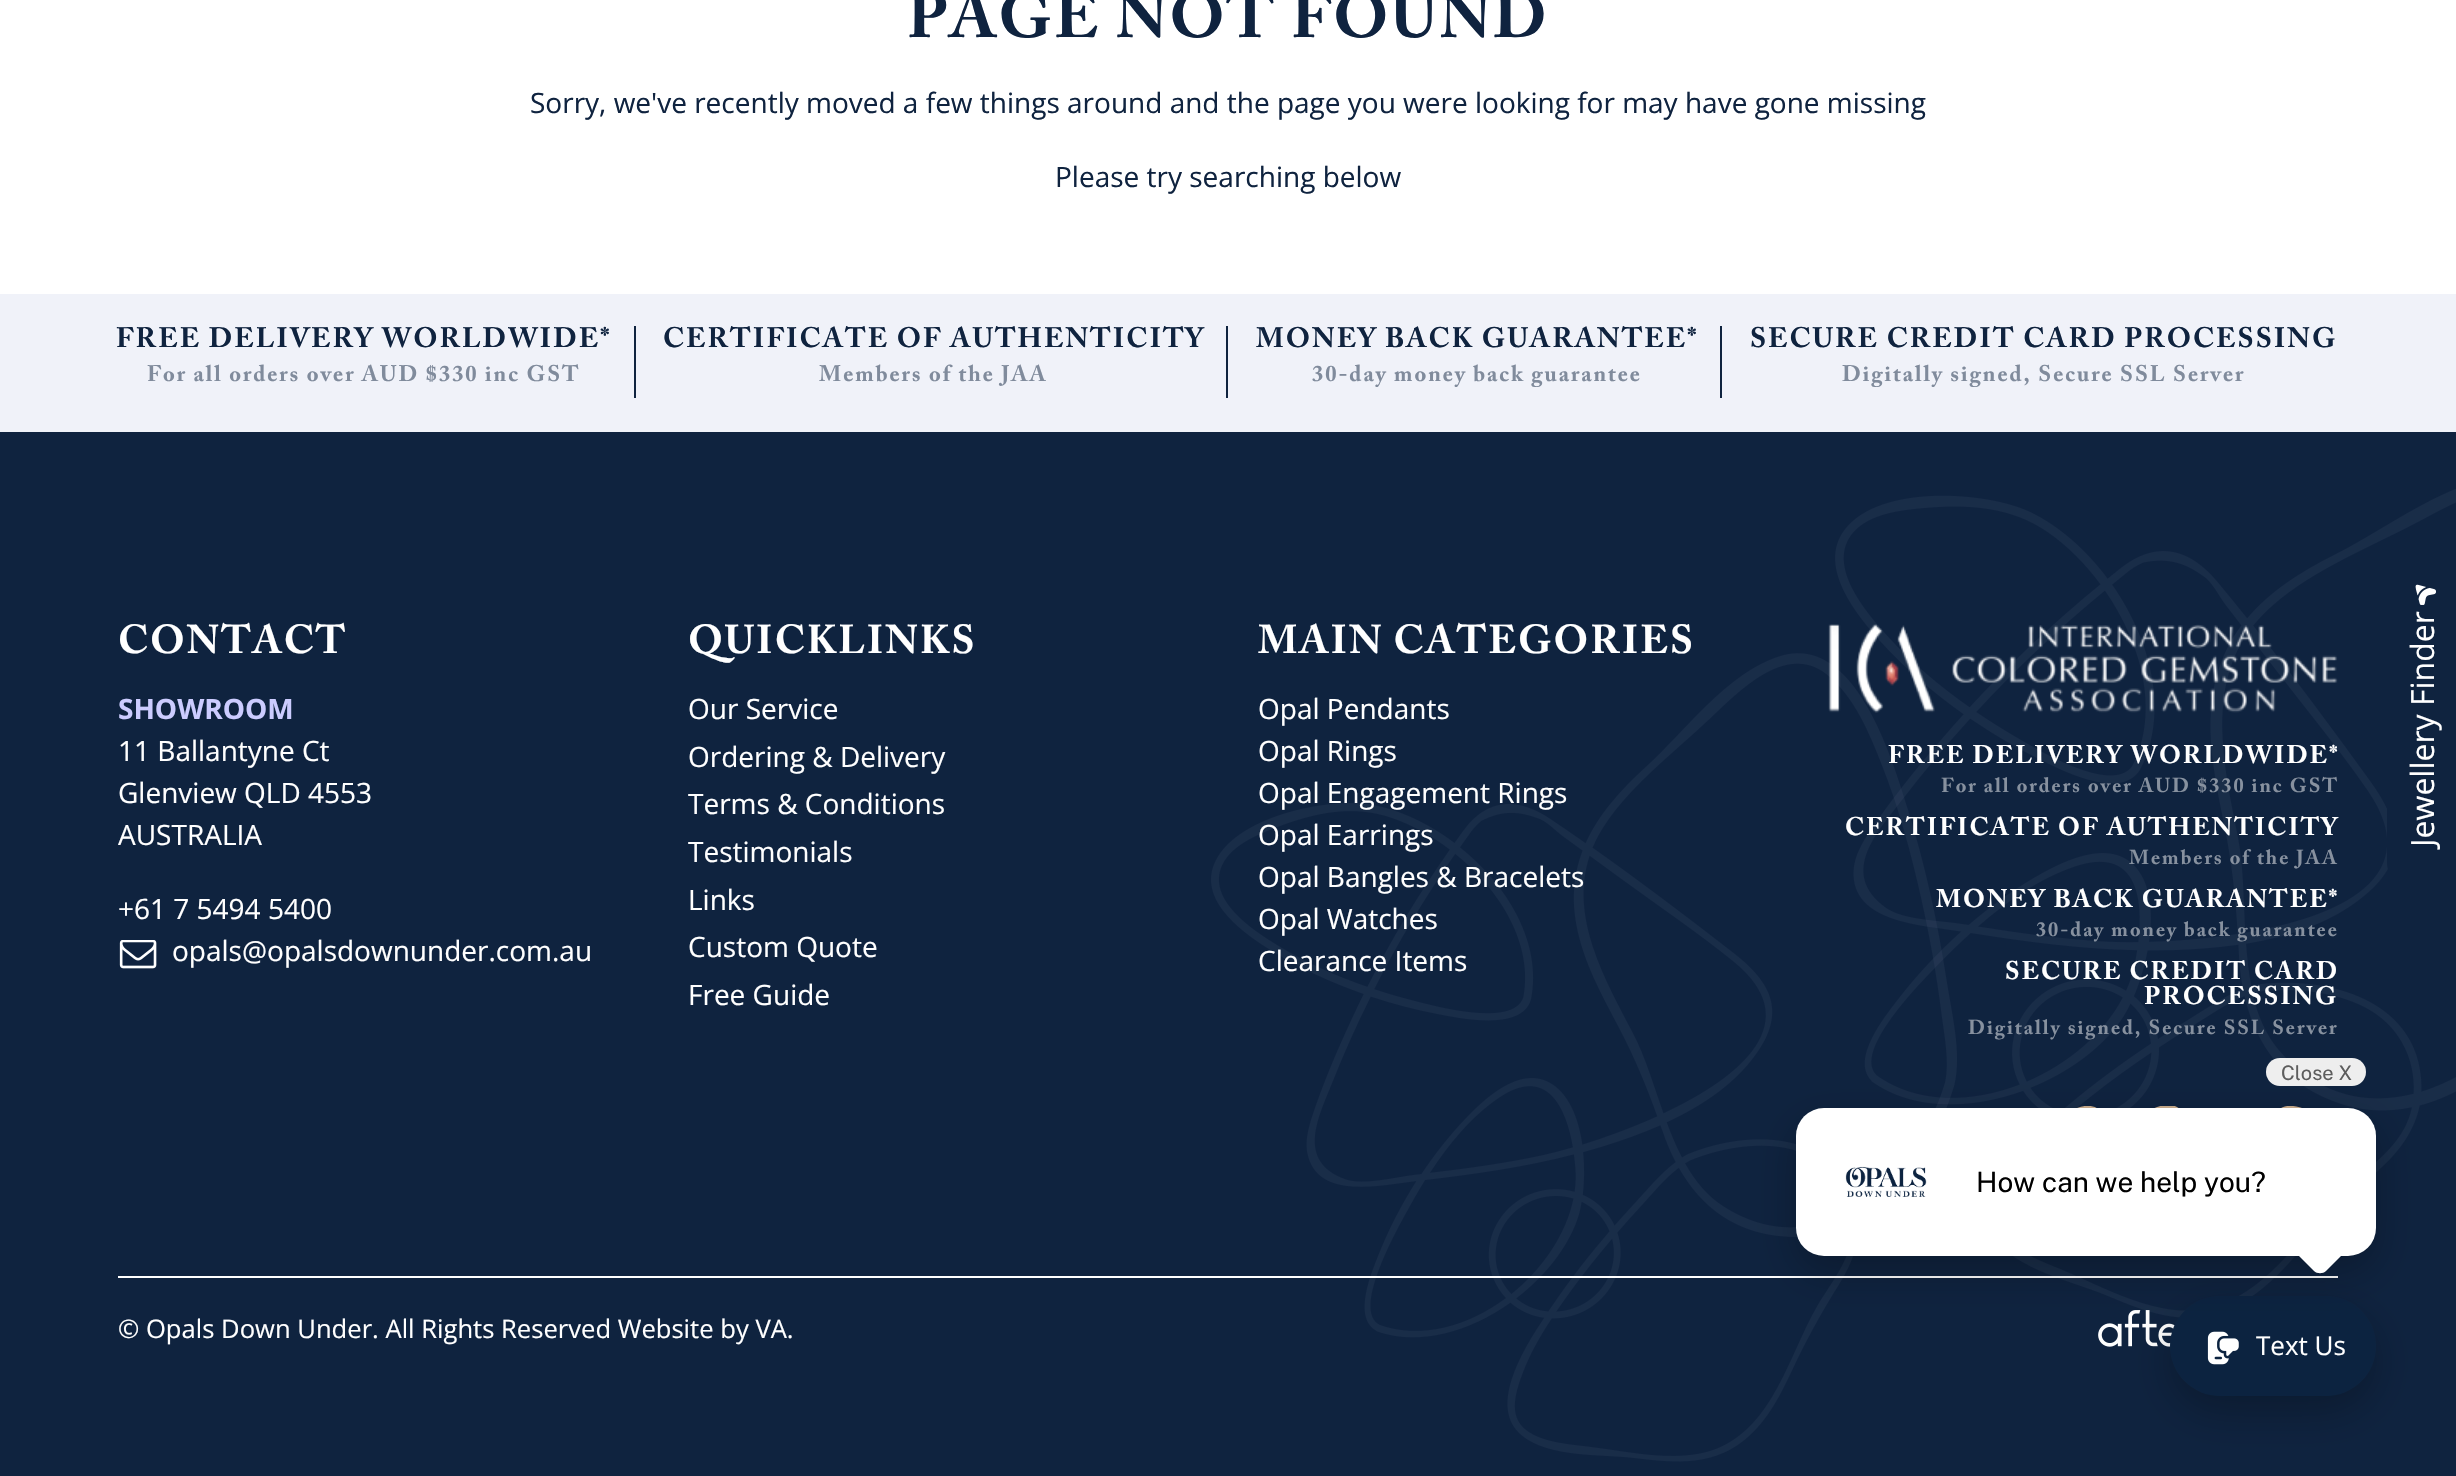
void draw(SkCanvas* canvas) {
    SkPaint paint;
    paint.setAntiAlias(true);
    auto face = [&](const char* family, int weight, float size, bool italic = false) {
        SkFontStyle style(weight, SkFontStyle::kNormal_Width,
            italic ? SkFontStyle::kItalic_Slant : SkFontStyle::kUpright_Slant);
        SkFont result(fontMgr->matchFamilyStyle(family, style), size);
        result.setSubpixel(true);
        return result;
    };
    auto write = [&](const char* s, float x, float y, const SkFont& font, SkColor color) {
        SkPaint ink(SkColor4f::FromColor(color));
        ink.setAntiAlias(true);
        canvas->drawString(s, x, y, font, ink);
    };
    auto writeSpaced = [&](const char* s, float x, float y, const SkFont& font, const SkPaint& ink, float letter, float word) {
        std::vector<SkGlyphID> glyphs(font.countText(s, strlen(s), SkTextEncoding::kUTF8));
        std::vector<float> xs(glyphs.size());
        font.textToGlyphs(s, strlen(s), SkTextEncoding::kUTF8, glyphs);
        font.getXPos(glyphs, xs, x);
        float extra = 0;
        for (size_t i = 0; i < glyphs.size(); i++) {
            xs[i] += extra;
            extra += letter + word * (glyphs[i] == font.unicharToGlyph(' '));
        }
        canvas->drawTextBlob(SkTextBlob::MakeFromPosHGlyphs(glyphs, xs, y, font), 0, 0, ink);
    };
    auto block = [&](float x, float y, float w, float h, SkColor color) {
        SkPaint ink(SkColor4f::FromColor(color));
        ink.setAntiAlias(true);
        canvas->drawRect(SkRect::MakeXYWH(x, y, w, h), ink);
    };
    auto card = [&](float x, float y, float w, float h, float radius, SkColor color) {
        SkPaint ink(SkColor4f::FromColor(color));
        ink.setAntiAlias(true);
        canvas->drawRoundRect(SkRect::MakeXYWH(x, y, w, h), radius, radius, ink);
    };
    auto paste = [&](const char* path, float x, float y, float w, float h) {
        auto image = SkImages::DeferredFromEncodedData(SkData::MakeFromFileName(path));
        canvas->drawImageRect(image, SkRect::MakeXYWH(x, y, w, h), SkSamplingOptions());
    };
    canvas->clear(SK_ColorWHITE);
    auto kFont1 = face("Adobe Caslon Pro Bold", 700, 64);
    paint.setColor(SkColorSetRGB(15, 35, 63));
    writeSpaced("PAGE NOT FOUND", 907, 37, kFont1, paint, 2, 0);
    auto kFont2 = face("Open Sans", 400, 28);
    write("Sorry, we've recently moved a few things around and the page you were looking for may have gone missing", 530, 113, kFont2, SkColorSetRGB(15, 35, 63));
    write("Please try searching below", 1055, 187, kFont2, SkColorSetRGB(15, 35, 63));
    block(0, 294, 2456, 138, SkColorSetRGB(240, 242, 249));
    block(634, 326, 2, 72, SkColorSetRGB(15, 35, 63));
    auto kFont3 = face("Adobe Caslon Pro Bold", 700, 28);
    writeSpaced("FREE DELIVERY WORLDWIDE*", 116, 347, kFont3, paint, 2, 0);
    auto kFont4 = face("Adobe Caslon Pro Bold", 700, 22.4f);
    paint.setColor(SkColorSetRGB(128, 139, 156));
    writeSpaced("For all orders over AUD $330 inc GST", 147, 381, kFont4, paint, 2, 0);
    block(1226, 326, 2, 72, SkColorSetRGB(15, 35, 63));
    paint.setColor(SkColorSetRGB(15, 35, 63));
    writeSpaced("CERTIFICATE OF AUTHENTICITY", 663, 347, kFont3, paint, 2, 0);
    paint.setColor(SkColorSetRGB(128, 139, 156));
    writeSpaced("Members of the JAA", 819, 381, kFont4, paint, 2, 0);
    block(1720, 326, 2, 72, SkColorSetRGB(15, 35, 63));
    paint.setColor(SkColorSetRGB(15, 35, 63));
    writeSpaced("MONEY BACK GUARANTEE*", 1256, 347, kFont3, paint, 2, 0);
    paint.setColor(SkColorSetRGB(128, 139, 156));
    writeSpaced("30-day money back guarantee", 1312, 381, kFont4, paint, 2, 0);
    paint.setColor(SkColorSetRGB(15, 35, 63));
    writeSpaced("SECURE CREDIT CARD PROCESSING", 1750, 347, kFont3, paint, 2, 0);
    paint.setColor(SkColorSetRGB(128, 139, 156));
    writeSpaced("Digitally signed, Secure SSL Server", 1842, 381, kFont4, paint, 2, 0);
    block(0, 432, 2456, 1044, SkColorSetRGB(15, 35, 63));
    paste("pic1.png", 1211, 489, 1245, 973);
    auto kFont5 = face("Adobe Caslon Pro Bold", 700, 40);
    paint.setColor(SK_ColorWHITE);
    writeSpaced("CONTACT", 118, 653, kFont5, paint, 2, 0);
    auto kFont6 = face("Open Sans", 700, 28);
    write("SHOWROOM", 118, 719, kFont6, SkColorSetRGB(204, 204, 255));
    write("11 Ballantyne Ct", 118, 761, kFont2, SK_ColorWHITE);
    write("Glenview QLD 4553", 118, 803, kFont2, SK_ColorWHITE);
    write("AUSTRALIA", 118, 845, kFont2, SK_ColorWHITE);
    write("+61 7 5494 5400", 118, 919, kFont2, SK_ColorWHITE);
    paste("pic2.png", 119, 940, 38, 29);
    write("opals@opalsdownunder.com.au", 172, 961, kFont2, SK_ColorWHITE);
    writeSpaced("QUICKLINKS", 688, 653, kFont5, paint, 2, 0);
    write("Our Service", 688, 719, kFont2, SK_ColorWHITE);
    write("Ordering & Delivery", 688, 767, kFont2, SK_ColorWHITE);
    write("Terms & Conditions", 688, 814, kFont2, SK_ColorWHITE);
    write("Testimonials", 688, 862, kFont2, SK_ColorWHITE);
    write("Links", 688, 910, kFont2, SK_ColorWHITE);
    write("Custom Quote", 688, 957, kFont2, SK_ColorWHITE);
    write("Free Guide", 688, 1005, kFont2, SK_ColorWHITE);
    writeSpaced("MAIN CATEGORIES", 1258, 653, kFont5, paint, 2, 0);
    write("Opal Pendants", 1258, 719, kFont2, SK_ColorWHITE);
    write("Opal Rings", 1258, 761, kFont2, SK_ColorWHITE);
    write("Opal Engagement Rings", 1258, 803, kFont2, SK_ColorWHITE);
    write("Opal Earrings", 1258, 845, kFont2, SK_ColorWHITE);
    write("Opal Bangles & Bracelets", 1258, 887, kFont2, SK_ColorWHITE);
    write("Opal Watches", 1258, 929, kFont2, SK_ColorWHITE);
    write("Clearance Items", 1258, 971, kFont2, SK_ColorWHITE);
    paste("pic3.png", 1828, 624, 510, 89);
    auto kFont7 = face("Adobe Caslon Pro Bold", 700, 25.25f);
    writeSpaced("FREE DELIVERY WORLDWIDE*", 1888, 763, kFont7, paint, 2, 0);
    auto kFont8 = face("Adobe Caslon Pro Bold", 700, 20.2f);
    paint.setColor(SkColorSetRGB(135, 145, 159));
    writeSpaced("For all orders over AUD $330 inc GST", 1941, 792, kFont8, paint, 2, 0);
    paint.setColor(SK_ColorWHITE);
    writeSpaced("CERTIFICATE OF AUTHENTICITY", 1845, 835, kFont7, paint, 2, 0);
    paint.setColor(SkColorSetRGB(135, 145, 159));
    writeSpaced("Members of the JAA", 2129, 864, kFont8, paint, 2, 0);
    paint.setColor(SK_ColorWHITE);
    writeSpaced("MONEY BACK GUARANTEE*", 1936, 907, kFont7, paint, 2, 0);
    paint.setColor(SkColorSetRGB(135, 145, 159));
    writeSpaced("30-day money back guarantee", 2036, 936, kFont8, paint, 2, 0);
    paint.setColor(SK_ColorWHITE);
    writeSpaced("SECURE CREDIT CARD", 2005, 979, kFont7, paint, 2, 0);
    writeSpaced("PROCESSING", 2144, 1004, kFont7, paint, 2, 0);
    paint.setColor(SkColorSetRGB(135, 145, 159));
    writeSpaced("Digitally signed, Secure SSL Server", 1968, 1034, kFont8, paint, 2, 0);
    canvas->save();
    canvas->clipRect(SkRect::MakeXYWH(2046, 1106, 70, 64));
    paint.setColor(SkColorSetRGB(203, 174, 142));
    canvas->drawPath(SkPathBuilder().moveTo(2077, 1108).cubicTo(2024, 1127, 2068, 1172, 2088, 1167).cubicTo(2117, 1159, 2116, 1093, 2077, 1108).detach(), paint);
    canvas->restore();
    paste("pic4.png", 2154, 1106, 25, 2);
    paste("pic5.png", 2281, 1106, 21, 2);
    block(118, 1276, 2220, 2, SK_ColorWHITE);
    auto kFont9 = face("Open Sans", 400, 25.6f);
    write("© Opals Down Under. All Rights Reserved Website by VA.", 118, 1338, kFont9, SK_ColorWHITE);
    paste("pic6.png", 2098, 1310, 77, 37);
    paint.setColor(SkColorSetRGB(15, 35, 63));
    canvas->drawPath(SkPathBuilder().moveTo(2387, 863).lineTo(2387, 567).cubicTo(2387, 556, 2396, 547, 2407, 547).lineTo(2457, 547).lineTo(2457, 883).lineTo(2407, 883).cubicTo(2396, 883, 2387, 875, 2387, 863).close().detach(), paint);
    paste("pic7.png", 2415, 584, 21, 21);
    auto kFont10 = face("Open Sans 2", 400, 32);
    canvas->save();
    canvas->rotate(-90, 2434, 847);
    write("Jewellery Finder", 2434, 847, kFont10, SK_ColorWHITE);
    canvas->restore();
    paint.setColor(SkColorSetARGB(61, 0, 0, 0));
    paint.setMaskFilter(SkMaskFilter::MakeBlur(kNormal_SkBlurStyle, 20));
    canvas->drawRoundRect(SkRect::MakeXYWH(2170, 1312, 206, 100), 50, 50, paint);
    paint.setMaskFilter(nullptr);
    card(2170, 1296, 206, 100, 50, SkColorSetRGB(12, 35, 64));
    paste("pic9.png", 2207, 1331, 32, 34);
    paint.setMaskFilter(SkMaskFilter::MakeBlur(kNormal_SkBlurStyle, 20));
    canvas->drawRoundRect(SkRect::MakeXYWH(1796, 1124, 580, 148), 28, 28, paint);
    paint.setMaskFilter(nullptr);
    card(1796, 1108, 580, 148, 28, SK_ColorWHITE);
    card(2266, 1058, 100, 28, 14, SkColorSetRGB(238, 238, 238));
    auto kFont11 = face("Public Sans", 100, 20);
    write("Close X", 2281, 1080, kFont11, SkColorSetRGB(93, 93, 93));
    paste("pic8.png", 1845, 1166, 82, 31);
    auto kFont12 = face("Public Sans", 100, 28);
    write("How can we help you?", 1976, 1192, kFont12, SK_ColorBLACK);
    paint.setColor(SK_ColorWHITE);
    canvas->drawPath(SkPathBuilder().moveTo(2326, 1225).lineTo(2343, 1242).cubicTo(2346, 1245, 2346, 1251, 2343, 1254).lineTo(2326, 1271).cubicTo(2323, 1274, 2317, 1274, 2314, 1271).lineTo(2297, 1254).cubicTo(2294, 1251, 2294, 1245, 2297, 1242).lineTo(2314, 1225).cubicTo(2317, 1222, 2323, 1222, 2326, 1225).close().detach(), paint);
    auto kFont13 = face("Open Sans", 400, 26);
    write("Text Us", 2256, 1355, kFont13, SK_ColorWHITE);
}
